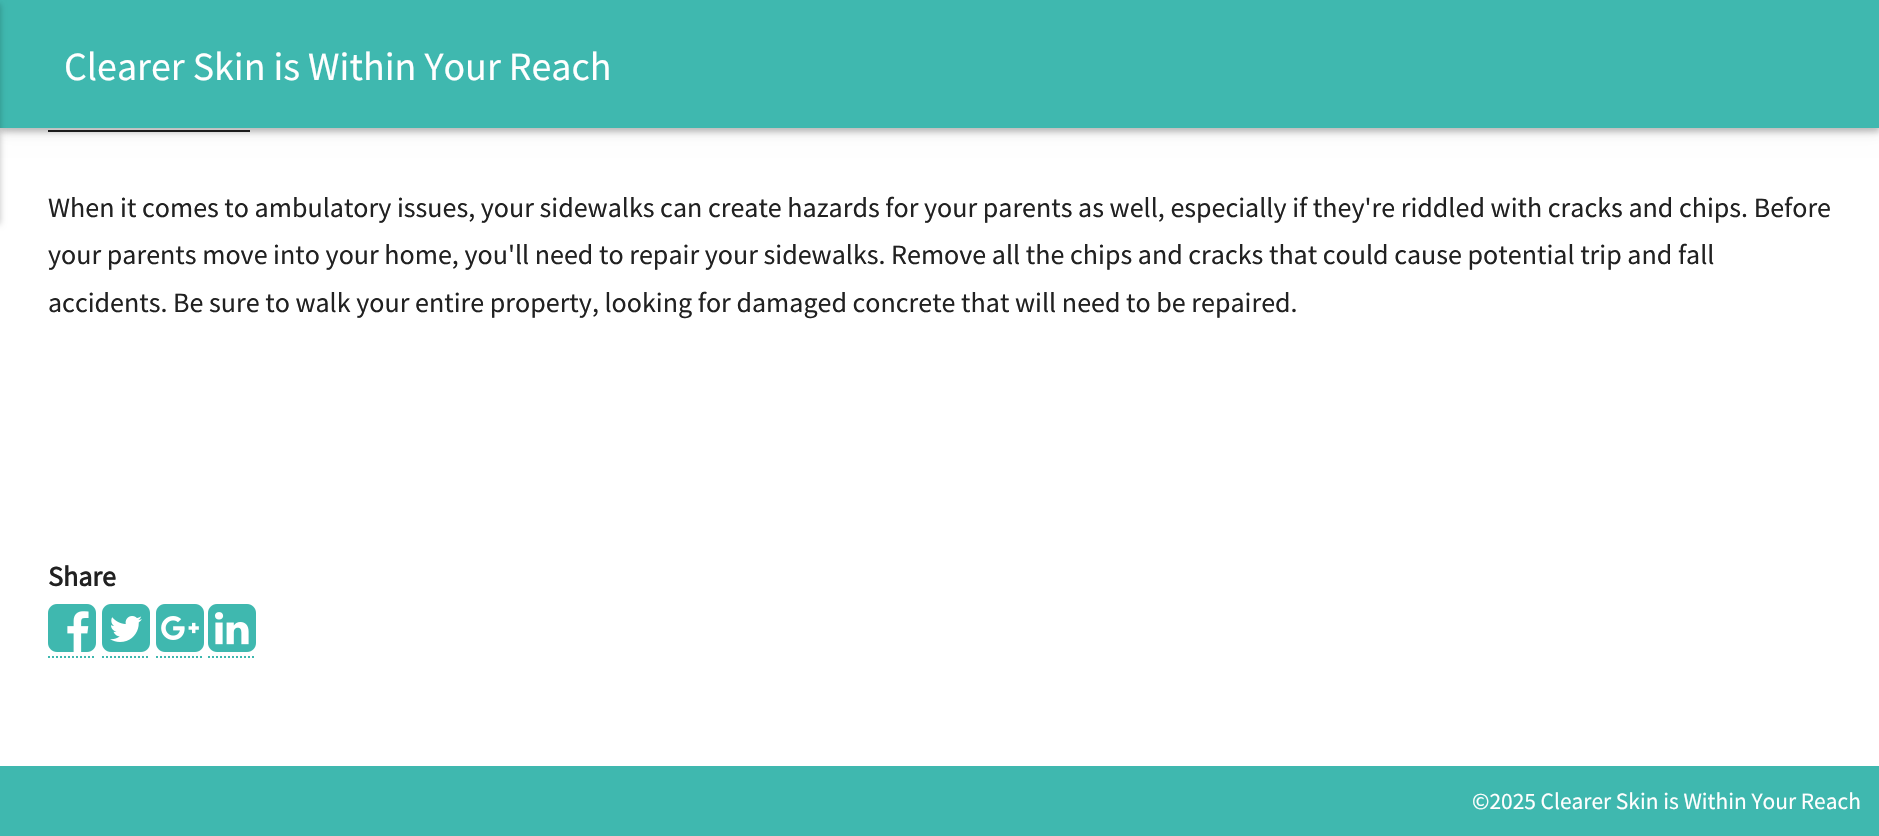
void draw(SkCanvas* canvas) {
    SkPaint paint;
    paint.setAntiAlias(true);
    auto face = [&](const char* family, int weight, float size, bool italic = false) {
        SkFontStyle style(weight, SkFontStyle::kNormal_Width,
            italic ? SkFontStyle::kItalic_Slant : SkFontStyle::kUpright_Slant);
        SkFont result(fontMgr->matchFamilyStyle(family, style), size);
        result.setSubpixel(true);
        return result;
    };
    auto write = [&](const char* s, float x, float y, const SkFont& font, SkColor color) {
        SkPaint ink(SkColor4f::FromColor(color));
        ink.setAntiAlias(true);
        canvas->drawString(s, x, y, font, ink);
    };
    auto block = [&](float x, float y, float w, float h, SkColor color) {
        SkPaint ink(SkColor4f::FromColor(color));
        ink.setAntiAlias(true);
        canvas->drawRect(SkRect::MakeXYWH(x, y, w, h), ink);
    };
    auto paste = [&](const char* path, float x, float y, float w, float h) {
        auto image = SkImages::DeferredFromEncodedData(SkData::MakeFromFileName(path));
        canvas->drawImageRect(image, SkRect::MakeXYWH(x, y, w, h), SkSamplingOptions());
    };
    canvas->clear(SK_ColorWHITE);
    block(48, 130, 202, 2, SkColorSetRGB(33, 33, 33));
    paint.setColor(SkColorSetARGB(13, 0, 0, 0));
    paint.setMaskFilter(SkMaskFilter::MakeBlur(kNormal_SkBlurStyle, 8));
    canvas->drawRect(SkRect::MakeXYWH(0, 6, 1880, 128), paint);
    paint.setMaskFilter(nullptr);
    paint.setColor(SkColorSetARGB(61, 0, 0, 0));
    paint.setMaskFilter(SkMaskFilter::MakeBlur(kNormal_SkBlurStyle, 3));
    canvas->drawRect(SkRect::MakeXYWH(0, 4, 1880, 128), paint);
    paint.setMaskFilter(nullptr);
    block(0, 0, 1879, 128, SkColorSetRGB(63, 184, 175));
    auto kFont1 = face("Source Sans Pro", 400, 40);
    write("Clearer Skin is Within Your Reach", 64, 80, kFont1, SK_ColorWHITE);
    paint.setMaskFilter(SkMaskFilter::MakeBlur(kNormal_SkBlurStyle, 3));
    canvas->drawRect(SkRect::MakeXYWH(-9, 4, 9, 220), paint);
    paint.setMaskFilter(nullptr);
    auto kFont2 = face("Source Sans Pro", 400, 28);
    write("When it comes to ambulatory issues, your sidewalks can create hazards for your parents as well, especially if they're riddled with cracks and chips. Before", 48, 217, kFont2, SkColorSetRGB(33, 33, 33));
    write("your parents move into your home, you'll need to repair your sidewalks. Remove all the chips and cracks that could cause potential trip and fall", 48, 264, kFont2, SkColorSetRGB(33, 33, 33));
    write("accidents. Be sure to walk your entire property, looking for damaged concrete that will need to be repaired.", 48, 312, kFont2, SkColorSetRGB(33, 33, 33));
    auto kFont3 = face("Source Sans Pro", 700, 28);
    write("Share", 48, 586, kFont3, SkColorSetRGB(33, 33, 33));
    paint.setStyle(SkPaint::kStroke_Style);
    paint.setStrokeWidth(2);
    paint.setColor(SkColorSetRGB(63, 184, 175));
    paint.setPathEffect(SkDashPathEffect::Make({{2, 2}}, 0));
    canvas->drawPath(SkPathBuilder().moveTo(48, 657).lineTo(96, 657).detach(), paint);
    paint.setPathEffect(nullptr);
    paste("pic1.png", 48, 604, 48, 48);
    paint.setPathEffect(SkDashPathEffect::Make({{2, 2}}, 0));
    canvas->drawPath(SkPathBuilder().moveTo(102, 657).lineTo(150, 657).detach(), paint);
    paint.setPathEffect(nullptr);
    paste("pic2.png", 102, 604, 48, 48);
    paint.setPathEffect(SkDashPathEffect::Make({{2, 2}}, 0));
    canvas->drawPath(SkPathBuilder().moveTo(156, 657).lineTo(204, 657).detach(), paint);
    paint.setPathEffect(nullptr);
    paste("pic3.png", 156, 604, 48, 48);
    paint.setPathEffect(SkDashPathEffect::Make({{2, 2}}, 0));
    canvas->drawPath(SkPathBuilder().moveTo(208, 657).lineTo(256, 657).detach(), paint);
    paint.setPathEffect(nullptr);
    paste("pic4.png", 208, 604, 48, 48);
    block(0, 766, 1879, 70, SkColorSetRGB(63, 184, 175));
    auto kFont4 = face("Source Sans Pro", 400, 23.4f);
    write("©2025 Clearer Skin is Within Your Reach", 1472, 809, kFont4, SK_ColorWHITE);
}
